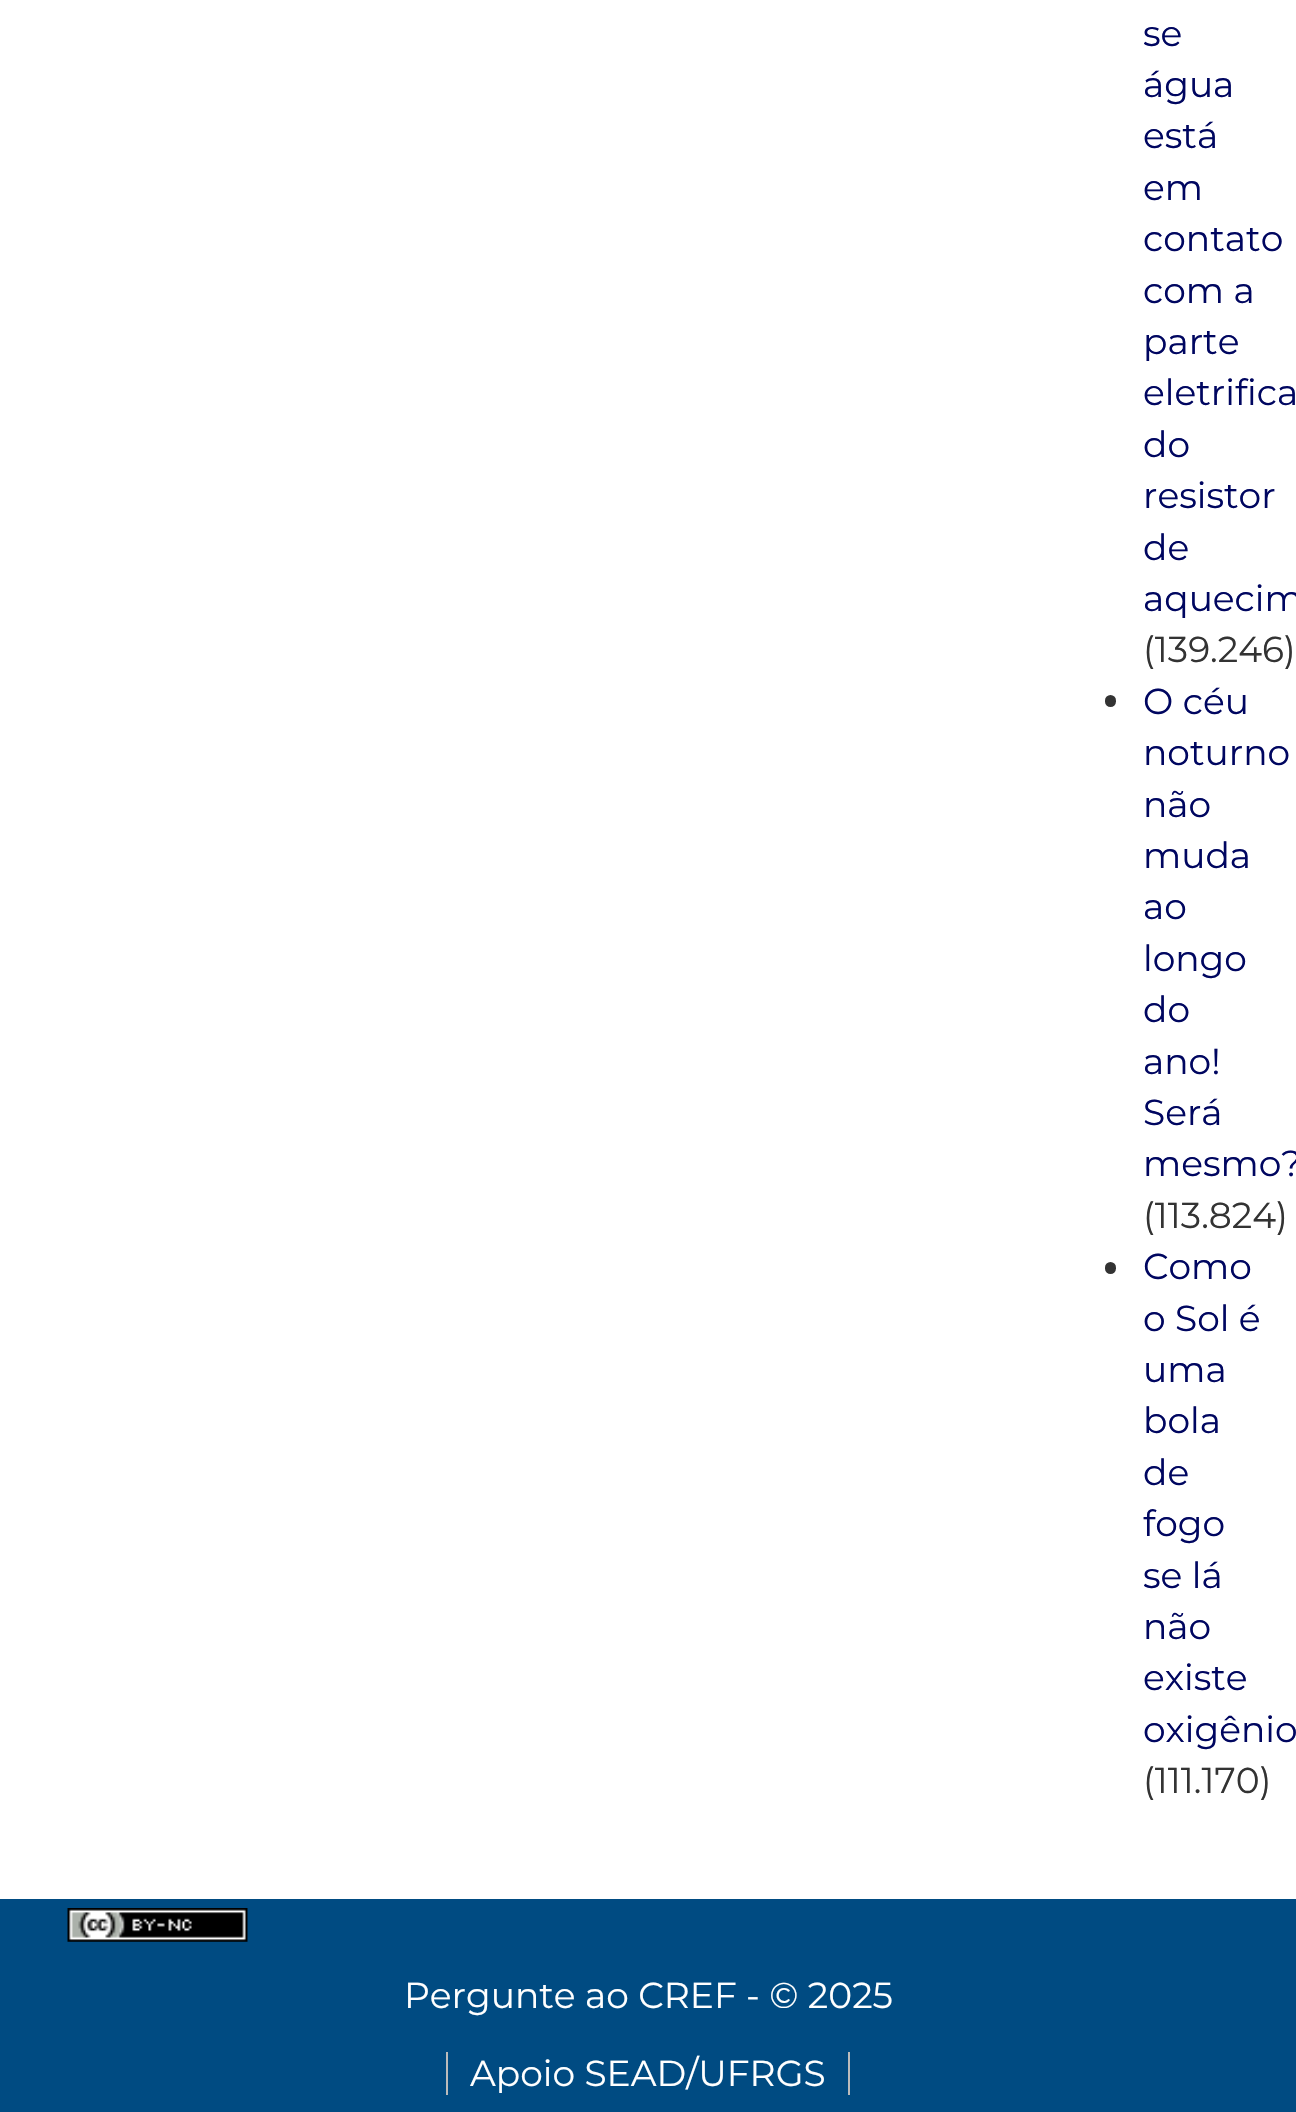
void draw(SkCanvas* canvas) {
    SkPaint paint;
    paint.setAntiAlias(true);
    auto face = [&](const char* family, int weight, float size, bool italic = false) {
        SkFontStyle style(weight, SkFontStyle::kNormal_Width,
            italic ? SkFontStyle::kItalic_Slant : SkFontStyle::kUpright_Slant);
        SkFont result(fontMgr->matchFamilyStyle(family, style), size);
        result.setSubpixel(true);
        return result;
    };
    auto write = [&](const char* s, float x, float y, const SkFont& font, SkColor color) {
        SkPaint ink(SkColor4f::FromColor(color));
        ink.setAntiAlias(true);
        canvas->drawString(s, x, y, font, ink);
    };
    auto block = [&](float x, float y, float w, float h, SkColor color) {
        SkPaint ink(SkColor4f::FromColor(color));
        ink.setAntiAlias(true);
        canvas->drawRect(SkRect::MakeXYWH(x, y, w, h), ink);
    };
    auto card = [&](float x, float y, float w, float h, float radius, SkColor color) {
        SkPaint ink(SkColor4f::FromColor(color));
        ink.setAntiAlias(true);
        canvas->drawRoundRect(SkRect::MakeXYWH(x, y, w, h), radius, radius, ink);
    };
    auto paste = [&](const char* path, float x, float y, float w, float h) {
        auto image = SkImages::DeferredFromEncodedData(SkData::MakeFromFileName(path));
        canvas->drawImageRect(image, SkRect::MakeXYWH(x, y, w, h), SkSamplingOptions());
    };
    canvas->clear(SK_ColorWHITE);
    auto kFont1 = face("Montserrat", 100, 36);
    write("se", 1143, 46, kFont1, SkColorSetRGB(0, 6, 96));
    write("água", 1143, 97, kFont1, SkColorSetRGB(0, 6, 96));
    write("está", 1143, 148, kFont1, SkColorSetRGB(0, 6, 96));
    write("em", 1143, 200, kFont1, SkColorSetRGB(0, 6, 96));
    write("contato", 1143, 251, kFont1, SkColorSetRGB(0, 6, 96));
    write("com a", 1143, 303, kFont1, SkColorSetRGB(0, 6, 96));
    write("parte", 1143, 354, kFont1, SkColorSetRGB(0, 6, 96));
    write("eletrifica", 1143, 405, kFont1, SkColorSetRGB(0, 6, 96));
    write("do", 1143, 457, kFont1, SkColorSetRGB(0, 6, 96));
    write("resistor", 1143, 508, kFont1, SkColorSetRGB(0, 6, 96));
    write("de", 1143, 560, kFont1, SkColorSetRGB(0, 6, 96));
    write("aquecim", 1143, 611, kFont1, SkColorSetRGB(0, 6, 96));
    write("(139.246)", 1143, 662, kFont1, SkColorSetRGB(51, 51, 51));
    card(1105, 695, 11, 12, 5.5f, SkColorSetRGB(51, 51, 51));
    write("O céu", 1143, 714, kFont1, SkColorSetRGB(0, 6, 96));
    write("noturno", 1143, 765, kFont1, SkColorSetRGB(0, 6, 96));
    write("não", 1143, 817, kFont1, SkColorSetRGB(0, 6, 96));
    write("muda", 1143, 868, kFont1, SkColorSetRGB(0, 6, 96));
    write("ao", 1143, 919, kFont1, SkColorSetRGB(0, 6, 96));
    write("longo", 1143, 971, kFont1, SkColorSetRGB(0, 6, 96));
    write("do", 1143, 1022, kFont1, SkColorSetRGB(0, 6, 96));
    write("ano!", 1143, 1074, kFont1, SkColorSetRGB(0, 6, 96));
    write("Será", 1143, 1125, kFont1, SkColorSetRGB(0, 6, 96));
    write("mesmo?", 1143, 1176, kFont1, SkColorSetRGB(0, 6, 96));
    write("(113.824)", 1143, 1228, kFont1, SkColorSetRGB(51, 51, 51));
    card(1105, 1262, 11, 12, 5.5f, SkColorSetRGB(51, 51, 51));
    write("Como", 1143, 1279, kFont1, SkColorSetRGB(0, 6, 96));
    write("o Sol é", 1143, 1331, kFont1, SkColorSetRGB(0, 6, 96));
    write("uma", 1143, 1382, kFont1, SkColorSetRGB(0, 6, 96));
    write("bola", 1143, 1433, kFont1, SkColorSetRGB(0, 6, 96));
    write("de", 1143, 1485, kFont1, SkColorSetRGB(0, 6, 96));
    write("fogo", 1143, 1536, kFont1, SkColorSetRGB(0, 6, 96));
    write("se lá", 1143, 1588, kFont1, SkColorSetRGB(0, 6, 96));
    write("não", 1143, 1639, kFont1, SkColorSetRGB(0, 6, 96));
    write("existe", 1143, 1690, kFont1, SkColorSetRGB(0, 6, 96));
    write("oxigênio", 1143, 1742, kFont1, SkColorSetRGB(0, 6, 96));
    write("(111.170)", 1143, 1793, kFont1, SkColorSetRGB(51, 51, 51));
    block(0, 1899, 1296, 213, SkColorSetRGB(0, 75, 130));
    paste("pic1.png", 67, 1908, 181, 34);
    write("Pergunte ao CREF - © 2025", 404, 2008, kFont1, SK_ColorWHITE);
    write("Apoio SEAD/UFRGS", 470, 2086, kFont1, SK_ColorWHITE);
    block(848, 2052, 2, 43, SkColorSetRGB(187, 187, 187));
    block(446, 2052, 2, 43, SkColorSetRGB(187, 187, 187));
}
